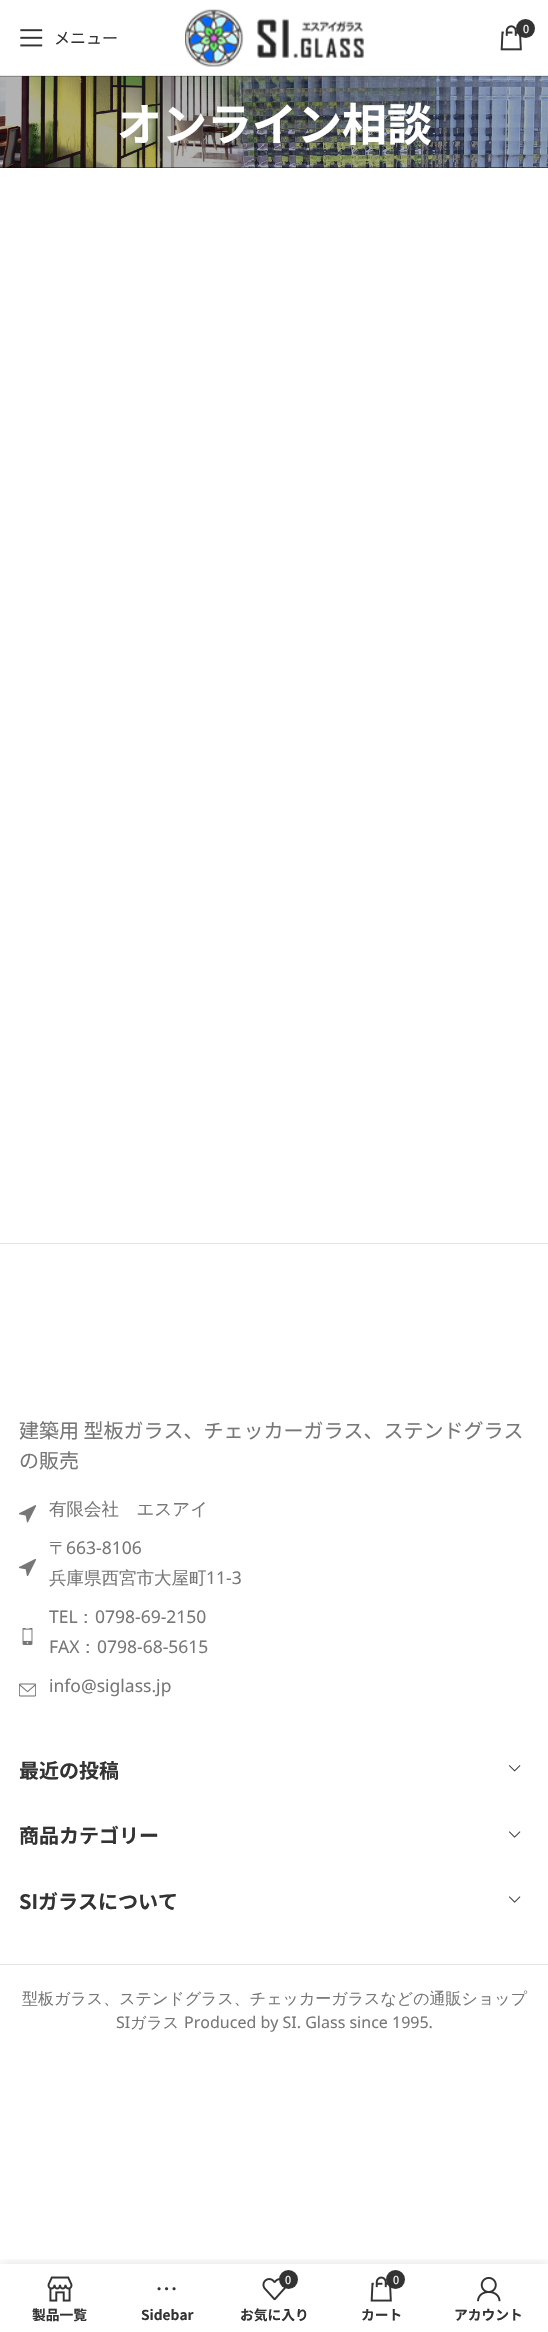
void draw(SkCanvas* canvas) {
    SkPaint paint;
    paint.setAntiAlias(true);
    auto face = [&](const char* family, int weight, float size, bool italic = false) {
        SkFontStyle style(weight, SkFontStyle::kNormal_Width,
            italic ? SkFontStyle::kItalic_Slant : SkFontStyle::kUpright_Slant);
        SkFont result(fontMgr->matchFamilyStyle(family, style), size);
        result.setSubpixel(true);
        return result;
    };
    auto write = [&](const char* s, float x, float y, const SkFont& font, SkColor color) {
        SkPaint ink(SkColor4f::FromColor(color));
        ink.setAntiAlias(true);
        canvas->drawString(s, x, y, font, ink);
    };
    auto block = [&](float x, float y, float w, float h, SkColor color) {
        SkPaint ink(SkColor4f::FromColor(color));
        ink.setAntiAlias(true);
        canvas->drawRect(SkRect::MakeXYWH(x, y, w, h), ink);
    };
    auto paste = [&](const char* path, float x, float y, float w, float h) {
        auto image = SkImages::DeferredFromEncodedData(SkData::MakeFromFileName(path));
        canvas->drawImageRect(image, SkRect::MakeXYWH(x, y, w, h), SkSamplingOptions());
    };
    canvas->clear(SK_ColorWHITE);
    block(0, 75, 548, 1, SkColorSetRGB(232, 232, 232));
    paste("pic1.png", 185, 9, 179, 58);
    paste("pic2.png", 500, 25, 22, 26);
    paint.setColor(SkColorSetRGB(51, 51, 51));
    canvas->drawCircle(525.5f, 28.5f, 9.5f, paint);
    auto kFont1 = face("Noto Sans JP", 400, 11);
    write("0", 523, 33, kFont1, SK_ColorWHITE);
    paste("pic3.png", 20, 29, 23, 18);
    auto kFont2 = face("Noto Sans JP", 400, 16);
    write("メニュー", 54, 44, kFont2, SkColorSetRGB(51, 51, 51));
    block(0, 76, 548, 92, SkColorSetRGB(10, 10, 10));
    paste("pic4.png", 0, 76, 548, 92);
    auto kFont3 = face("Noto Sans JP", 700, 45);
    write("オンライン相談", 117, 141, kFont3, SK_ColorWHITE);
    block(0, 1243, 548, 1, SkColorSetRGB(228, 228, 228));
    auto kFont4 = face("Noto Sans JP", 400, 20);
    write("建築用 型板ガラス、チェッカーガラス、ステンドグラス", 19, 1438, kFont4, SkColorSetRGB(119, 119, 119));
    write("の販売", 19, 1468, kFont4, SkColorSetRGB(119, 119, 119));
    paste("pic5.png", 19, 1505, 17, 18);
    auto kFont5 = face("WenQuanYi Zen Hei", 500, 17.5f);
    write("有限会社　エスアイ", 49, 1515, kFont5, SkColorSetRGB(119, 119, 119));
    paste("pic6.png", 19, 1559, 17, 17);
    write("〒", 49, 1554, kFont5, SkColorSetRGB(119, 119, 119));
    auto kFont6 = face("Noto Sans Javanese", 400, 17.5f);
    write("663-8106", 66, 1554, kFont6, SkColorSetRGB(119, 119, 119));
    write("兵庫県西宮市大屋町", 49, 1584, kFont5, SkColorSetRGB(119, 119, 119));
    write("11-3", 206, 1584, kFont6, SkColorSetRGB(119, 119, 119));
    paste("pic7.png", 22, 1628, 11, 17);
    write("TEL", 49, 1623, kFont6, SkColorSetRGB(119, 119, 119));
    write("：", 77, 1623, kFont5, SkColorSetRGB(119, 119, 119));
    write("0798-69-2150", 95, 1623, kFont6, SkColorSetRGB(119, 119, 119));
    write("FAX", 49, 1653, kFont6, SkColorSetRGB(119, 119, 119));
    write("：", 79, 1653, kFont5, SkColorSetRGB(119, 119, 119));
    write("0798-68-5615", 97, 1653, kFont6, SkColorSetRGB(119, 119, 119));
    paste("pic8.png", 19, 1683, 17, 14);
    write("info@siglass.jp", 49, 1692, kFont6, SkColorSetRGB(119, 119, 119));
    auto kFont7 = face("Noto Sans JP", 700, 20);
    write("最近の投稿", 19, 1778, kFont7, SkColorSetRGB(51, 51, 51));
    paste("pic9.png", 508, 1765, 13, 7);
    write("商品カテゴリー", 19, 1843, kFont7, SkColorSetRGB(51, 51, 51));
    paste("pic10.png", 508, 1831, 13, 7);
    write("SIガラスについて", 19, 1909, kFont7, SkColorSetRGB(51, 51, 51));
    paste("pic10.png", 508, 1896, 13, 7);
    block(0, 1964, 548, 1, SkColorSetRGB(228, 228, 228));
    auto kFont8 = face("WenQuanYi Zen Hei", 500, 16);
    write("型板ガラス、ステンドグラス、チェッカーガラスなどの通販ショップ", 22, 2004, kFont8, SkColorSetRGB(119, 119, 119));
    auto kFont9 = face("Noto Sans Javanese", 400, 16);
    write("SI", 116, 2028, kFont9, SkColorSetRGB(119, 119, 119));
    write("ガラス", 130, 2028, kFont8, SkColorSetRGB(119, 119, 119));
    write("Produced by SI. Glass since 1995.", 184, 2028, kFont9, SkColorSetRGB(119, 119, 119));
    canvas->save();
    canvas->clipRect(SkRect::MakeXYWH(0, 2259, 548, 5));
    paint.setColor(SkColorSetARGB(31, 0, 0, 0));
    paint.setMaskFilter(SkMaskFilter::MakeBlur(kNormal_SkBlurStyle, 5.5f));
    canvas->drawRect(SkRect::MakeXYWH(0, 2264, 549, 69), paint);
    paint.setMaskFilter(nullptr);
    canvas->restore();
    paste("pic11.png", 47, 2276, 26, 26);
    auto kFont10 = face("Noto Sans JP", 700, 13.75f);
    write("製品一覧", 32, 2320, kFont10, SkColorSetRGB(51, 51, 51));
    paste("pic12.png", 157, 2287, 19, 4);
    write("Sidebar", 141, 2320, kFont10, SkColorSetRGB(51, 51, 51));
    paste("pic13.png", 262, 2278, 24, 23);
    paint.setColor(SkColorSetRGB(51, 51, 51));
    canvas->drawCircle(288.5f, 2279.5f, 9.5f, paint);
    write("0", 285, 2284, kFont1, SK_ColorWHITE);
    write("お気に入り", 240, 2320, kFont10, SkColorSetRGB(51, 51, 51));
    paste("pic14.png", 370, 2276, 22, 26);
    canvas->drawCircle(395.5f, 2279.5f, 9.5f, paint);
    write("0", 393, 2284, kFont1, SK_ColorWHITE);
    write("カート", 361, 2320, kFont10, SkColorSetRGB(51, 51, 51));
    paste("pic15.png", 477, 2277, 24, 25);
    write("アカウント", 454, 2320, kFont10, SkColorSetRGB(51, 51, 51));
}
